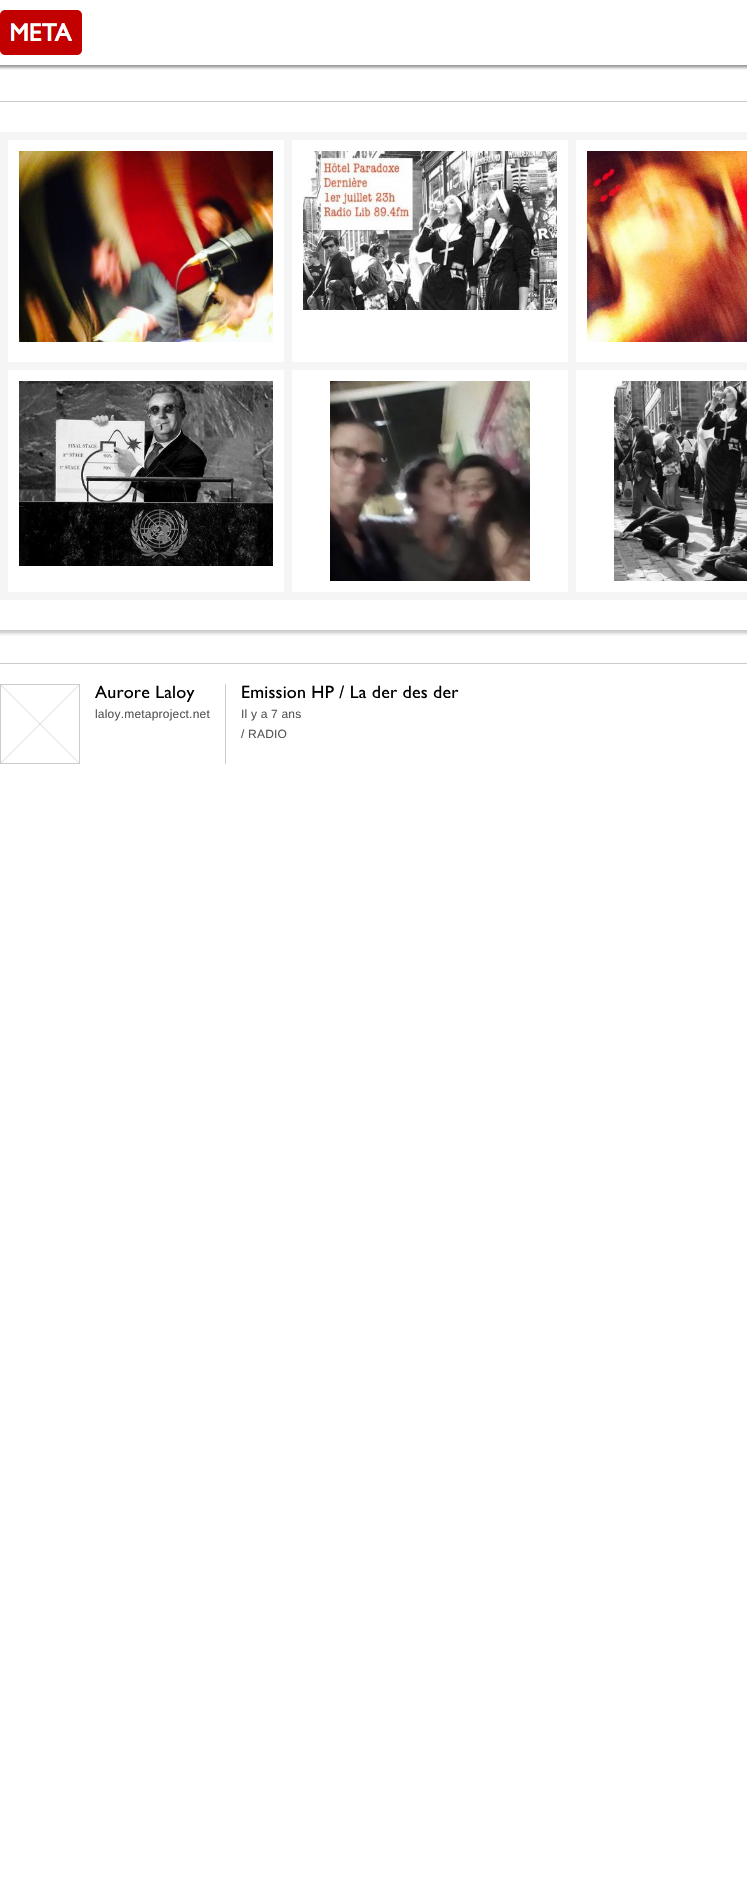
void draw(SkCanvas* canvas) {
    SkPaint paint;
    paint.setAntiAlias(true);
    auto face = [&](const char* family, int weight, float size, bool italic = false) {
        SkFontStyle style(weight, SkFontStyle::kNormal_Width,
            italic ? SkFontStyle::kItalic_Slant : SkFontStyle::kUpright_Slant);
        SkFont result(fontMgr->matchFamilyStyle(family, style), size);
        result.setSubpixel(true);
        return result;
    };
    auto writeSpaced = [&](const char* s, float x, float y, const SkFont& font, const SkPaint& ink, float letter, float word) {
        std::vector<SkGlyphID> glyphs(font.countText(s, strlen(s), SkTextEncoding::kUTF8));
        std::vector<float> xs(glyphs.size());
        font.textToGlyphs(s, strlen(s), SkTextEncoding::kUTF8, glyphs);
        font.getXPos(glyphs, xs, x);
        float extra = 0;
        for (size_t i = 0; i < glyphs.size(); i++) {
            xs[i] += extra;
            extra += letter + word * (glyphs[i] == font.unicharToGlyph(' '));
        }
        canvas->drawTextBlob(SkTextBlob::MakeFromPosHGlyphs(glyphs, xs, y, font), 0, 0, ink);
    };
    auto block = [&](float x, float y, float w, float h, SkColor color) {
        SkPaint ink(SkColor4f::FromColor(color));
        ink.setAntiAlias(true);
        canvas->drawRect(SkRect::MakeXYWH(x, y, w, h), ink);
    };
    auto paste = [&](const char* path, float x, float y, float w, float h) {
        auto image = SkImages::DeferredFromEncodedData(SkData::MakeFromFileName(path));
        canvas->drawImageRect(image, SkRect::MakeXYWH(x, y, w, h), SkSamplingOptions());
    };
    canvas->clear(SK_ColorWHITE);
    paste("pic4.png", 0, 65, 747, 3);
    paste("pic1.png", 0, 65, 747, 5);
    paste("pic2.png", 0, 10, 82, 45);
    paste("pic3.png", 0, 65, 747, 5);
    block(0, 101, 747, 1, SkColorSetRGB(204, 204, 204));
    block(0, 132, 747, 468, SkColorSetRGB(245, 245, 245));
    block(8, 140, 276, 222, SK_ColorWHITE);
    paste("pic5.png", 19, 151, 254, 191);
    block(292, 140, 276, 222, SK_ColorWHITE);
    paste("pic6.png", 303, 151, 254, 159);
    block(576, 140, 171, 222, SK_ColorWHITE);
    paste("pic7.png", 587, 151, 160, 191);
    block(8, 370, 276, 222, SK_ColorWHITE);
    paste("pic8.png", 19, 381, 254, 185);
    block(292, 370, 276, 222, SK_ColorWHITE);
    paste("pic9.png", 330, 381, 200, 200);
    block(576, 370, 171, 222, SK_ColorWHITE);
    paste("pic10.png", 614, 381, 133, 200);
    paste("pic11.png", 0, 631, 747, 5);
    block(0, 630, 747, 1, SkColorSetRGB(204, 204, 204));
    block(0, 663, 747, 1, SkColorSetRGB(204, 204, 204));
    paint.setStyle(SkPaint::kStroke_Style);
    paint.setStrokeWidth(1);
    paint.setColor(SkColorSetRGB(204, 204, 204));
    canvas->drawRect(SkRect::MakeXYWH(0.5f, 684.5f, 79, 79), paint);
    paste("pic12.png", 1, 685, 78, 78);
    auto kFont1 = face("Gill Sans", 400, 18);
    paint.setStyle(SkPaint::kFill_Style);
    paint.setColor(SK_ColorBLACK);
    writeSpaced("Aurore Laloy", 95, 698, kFont1, paint, 0.2f, 0);
    auto kFont2 = face("Liberation Sans", 400, 12);
    paint.setColor(SkColorSetRGB(85, 85, 85));
    writeSpaced("laloy.metaproject.net", 95, 718, kFont2, paint, 0.2f, 0);
    block(225, 684, 1, 80, SkColorSetRGB(204, 204, 204));
    paint.setColor(SK_ColorBLACK);
    writeSpaced("Emission HP / La der des der", 241, 698, kFont1, paint, 0.2f, 0);
    paint.setColor(SkColorSetRGB(85, 85, 85));
    writeSpaced("Il y a 7 ans", 241, 718, kFont2, paint, 0.2f, 0);
    writeSpaced("/ RADIO", 241, 738, kFont2, paint, 0.2f, 0);
}
